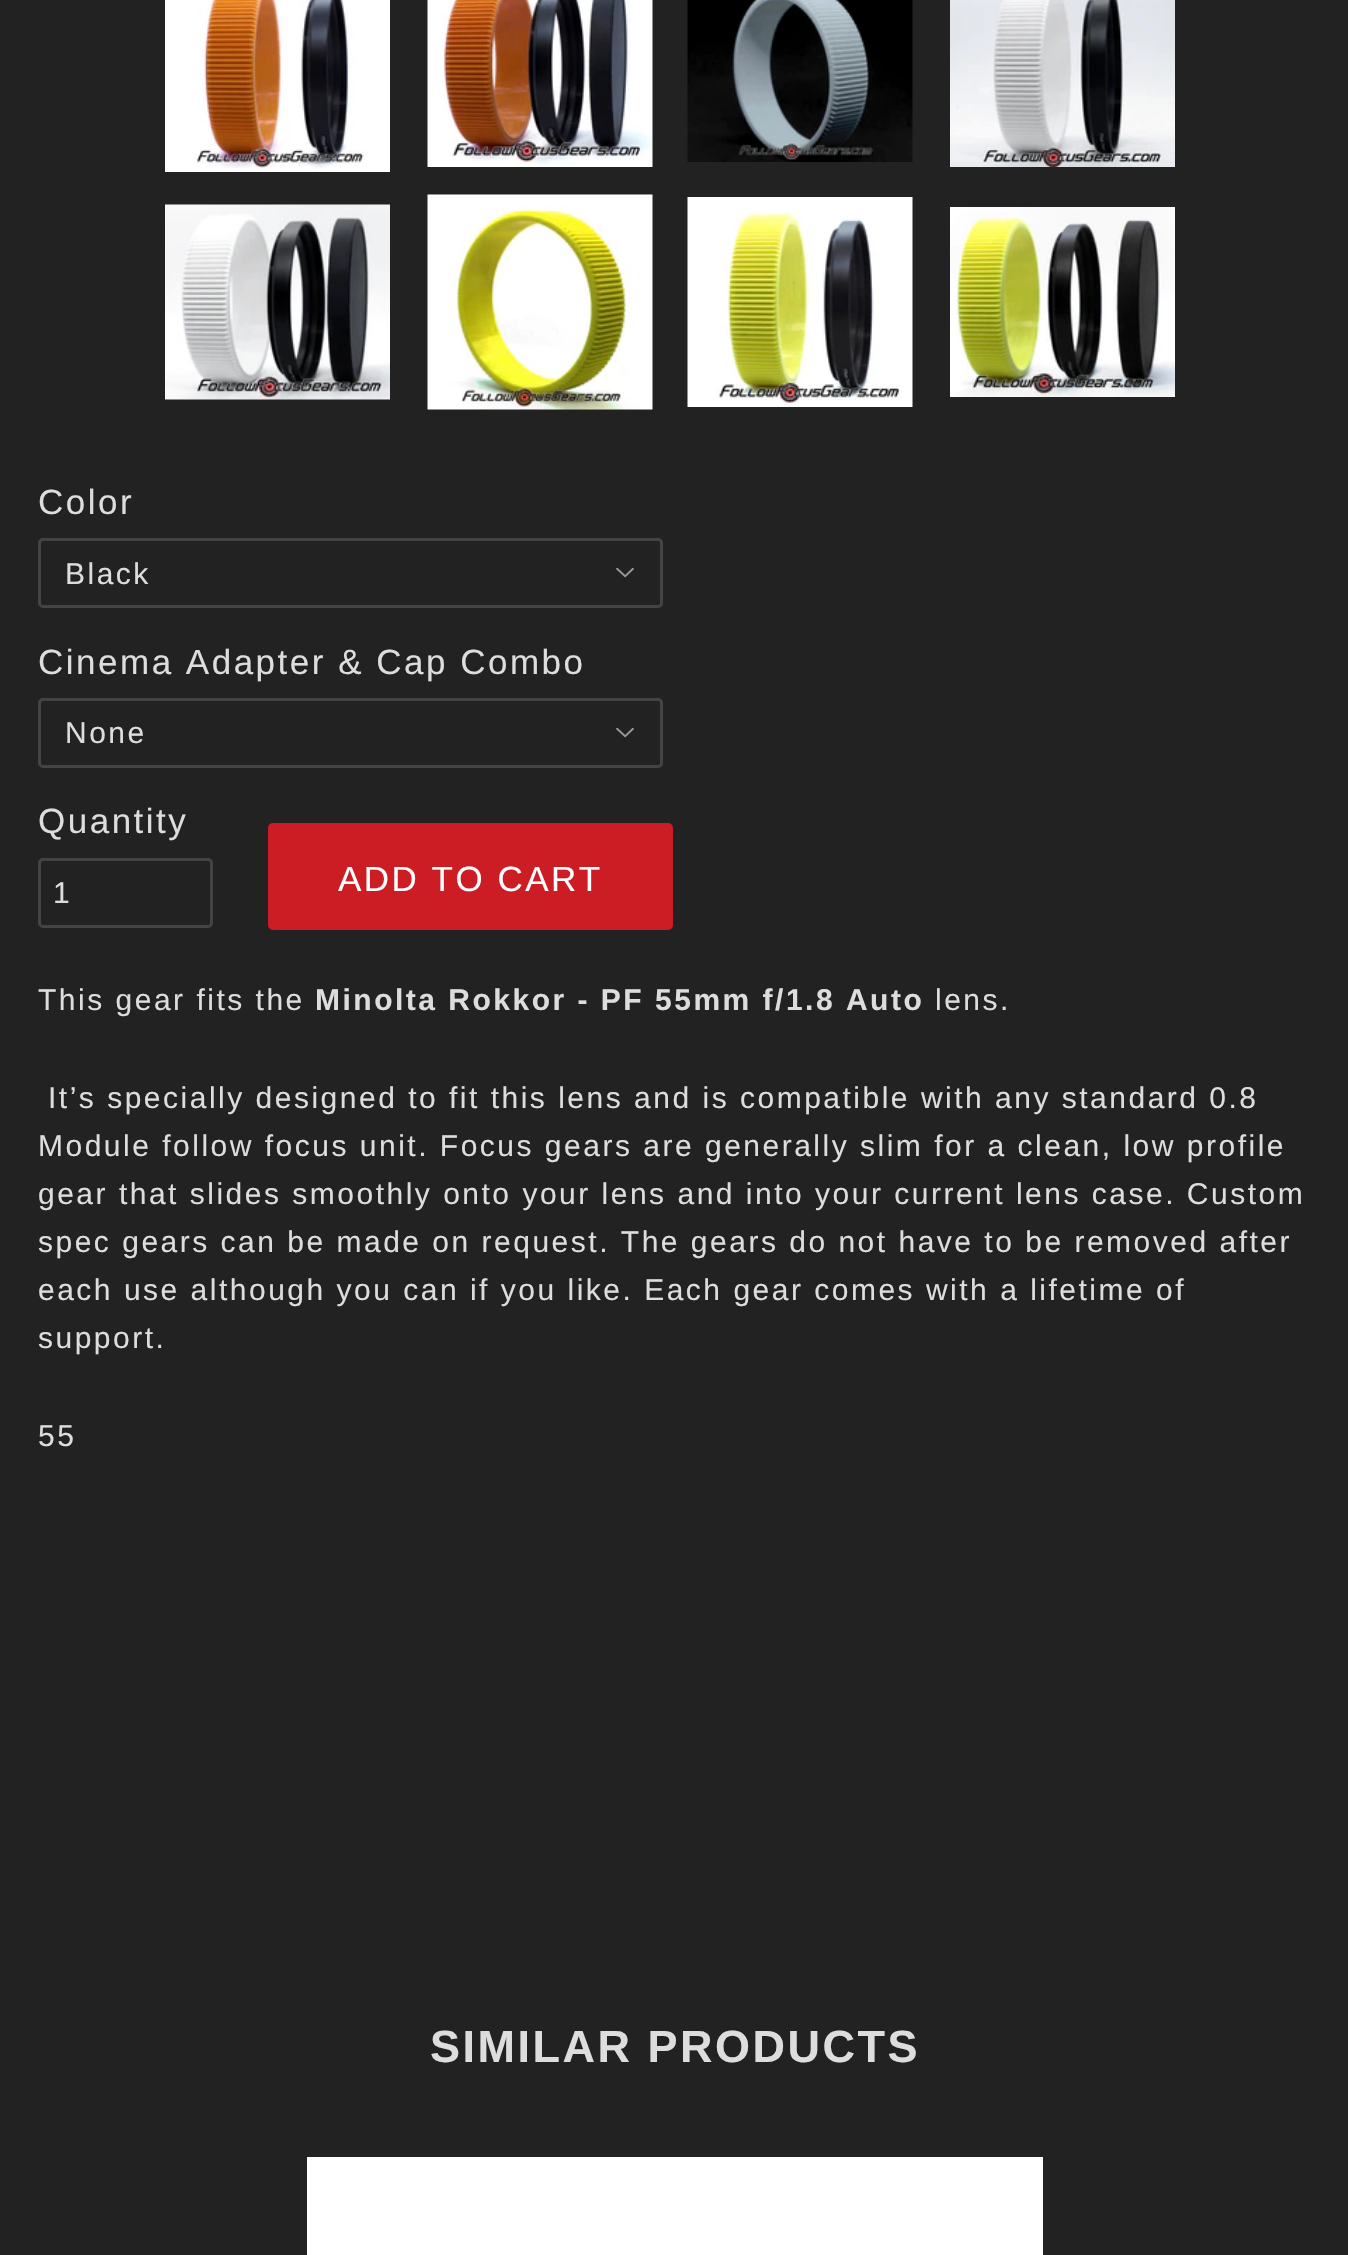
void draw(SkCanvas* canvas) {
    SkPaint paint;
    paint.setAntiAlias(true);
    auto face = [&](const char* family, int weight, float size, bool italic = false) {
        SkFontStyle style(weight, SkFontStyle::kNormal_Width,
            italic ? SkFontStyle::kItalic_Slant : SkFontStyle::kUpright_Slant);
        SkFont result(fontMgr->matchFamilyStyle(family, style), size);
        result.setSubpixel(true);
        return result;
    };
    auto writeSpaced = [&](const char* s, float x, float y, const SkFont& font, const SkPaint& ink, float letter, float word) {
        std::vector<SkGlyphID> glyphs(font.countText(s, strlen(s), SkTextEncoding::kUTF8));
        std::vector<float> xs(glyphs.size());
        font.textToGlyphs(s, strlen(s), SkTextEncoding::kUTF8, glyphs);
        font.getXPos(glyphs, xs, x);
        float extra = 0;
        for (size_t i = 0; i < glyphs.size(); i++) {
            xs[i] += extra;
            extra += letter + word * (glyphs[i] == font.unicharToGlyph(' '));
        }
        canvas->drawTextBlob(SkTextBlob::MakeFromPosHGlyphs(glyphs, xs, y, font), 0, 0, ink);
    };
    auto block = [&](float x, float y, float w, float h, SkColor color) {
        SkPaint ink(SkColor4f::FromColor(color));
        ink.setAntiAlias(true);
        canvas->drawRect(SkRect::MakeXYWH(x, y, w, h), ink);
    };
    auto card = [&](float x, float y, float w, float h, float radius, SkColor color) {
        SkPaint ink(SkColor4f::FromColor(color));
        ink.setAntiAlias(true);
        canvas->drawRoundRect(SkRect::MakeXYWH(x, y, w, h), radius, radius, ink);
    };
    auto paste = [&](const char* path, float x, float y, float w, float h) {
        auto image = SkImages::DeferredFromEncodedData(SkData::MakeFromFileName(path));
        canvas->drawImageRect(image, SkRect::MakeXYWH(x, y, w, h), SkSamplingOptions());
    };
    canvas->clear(SkColorSetRGB(34, 34, 34));
    paste("pic1.png", 165, 0, 225, 172);
    paste("pic2.png", 427, 0, 226, 167);
    paste("pic3.png", 687, 0, 226, 162);
    paste("pic4.png", 950, 0, 225, 167);
    paste("pic5.png", 165, 204, 225, 196);
    paste("pic6.png", 427, 194, 226, 216);
    paste("pic7.png", 687, 197, 226, 210);
    paste("pic8.png", 950, 207, 225, 190);
    auto kFont1 = face("Liberation Sans", 400, 35);
    paint.setColor(SkColorSetRGB(221, 221, 221));
    writeSpaced("Color", 38, 514, kFont1, paint, 2.5f, 0);
    paste("pic9.png", 616, 568, 18, 10);
    paint.setStyle(SkPaint::kStroke_Style);
    paint.setStrokeWidth(3);
    paint.setColor(SkColorSetRGB(68, 68, 68));
    canvas->drawRoundRect(SkRect::MakeXYWH(39.5f, 539.5f, 622, 67), 3.5f, 3.5f, paint);
    auto kFont2 = face("Liberation Sans", 400, 30);
    paint.setStyle(SkPaint::kFill_Style);
    paint.setColor(SkColorSetRGB(221, 221, 221));
    writeSpaced("Black", 65, 584, kFont2, paint, 2.5f, 0);
    writeSpaced("Cinema Adapter & Cap Combo", 38, 674, kFont1, paint, 2.5f, 0);
    paste("pic9.png", 616, 728, 18, 10);
    paint.setStyle(SkPaint::kStroke_Style);
    paint.setColor(SkColorSetRGB(68, 68, 68));
    canvas->drawRoundRect(SkRect::MakeXYWH(39.5f, 699.5f, 622, 67), 3.5f, 3.5f, paint);
    paint.setStyle(SkPaint::kFill_Style);
    paint.setColor(SkColorSetRGB(221, 221, 221));
    writeSpaced("None", 65, 743, kFont2, paint, 2.5f, 0);
    writeSpaced("Quantity", 38, 833, kFont1, paint, 2.5f, 0);
    paint.setStyle(SkPaint::kStroke_Style);
    paint.setColor(SkColorSetRGB(68, 68, 68));
    canvas->drawRoundRect(SkRect::MakeXYWH(39.5f, 859.5f, 172, 67), 3.5f, 3.5f, paint);
    paint.setStyle(SkPaint::kFill_Style);
    paint.setColor(SkColorSetRGB(221, 221, 221));
    writeSpaced("1", 53, 903, kFont2, paint, 2, 0);
    card(268, 823, 405, 107, 5, SkColorSetRGB(204, 29, 36));
    paint.setColor(SK_ColorWHITE);
    writeSpaced("ADD TO CART", 338, 891, kFont1, paint, 2.5f, 0);
    paint.setColor(SkColorSetRGB(221, 221, 221));
    writeSpaced("This gear fits the", 38, 1010, kFont2, paint, 2.5f, 0);
    auto kFont3 = face("Liberation Sans", 700, 30);
    writeSpaced("Minolta Rokkor - PF 55mm f/1.8 Auto", 315, 1010, kFont3, paint, 2.5f, 0);
    writeSpaced("lens.", 935, 1010, kFont2, paint, 2.5f, 0);
    writeSpaced("It’s specially designed to fit this lens and is compatible with any standard 0.8", 48, 1108, kFont2, paint, 2.5f, 0);
    writeSpaced("Module follow focus unit. Focus gears are generally slim for a clean, low profile", 38, 1156, kFont2, paint, 2.5f, 0);
    writeSpaced("gear that slides smoothly onto your lens and into your current lens case. Custom", 38, 1204, kFont2, paint, 2.5f, 0);
    writeSpaced("spec gears can be made on request. The gears do not have to be removed after", 38, 1252, kFont2, paint, 2.5f, 0);
    writeSpaced("each use although you can if you like. Each gear comes with a lifetime of", 38, 1300, kFont2, paint, 2.5f, 0);
    writeSpaced("support.", 38, 1348, kFont2, paint, 2.5f, 0);
    writeSpaced("55", 38, 1446, kFont2, paint, 2.5f, 0);
    auto kFont4 = face("Liberation Sans", 700, 45);
    writeSpaced("SIMILAR PRODUCTS", 430, 2062, kFont4, paint, 2.5f, 0);
    block(307, 2157, 736, 98, SK_ColorWHITE);
}
